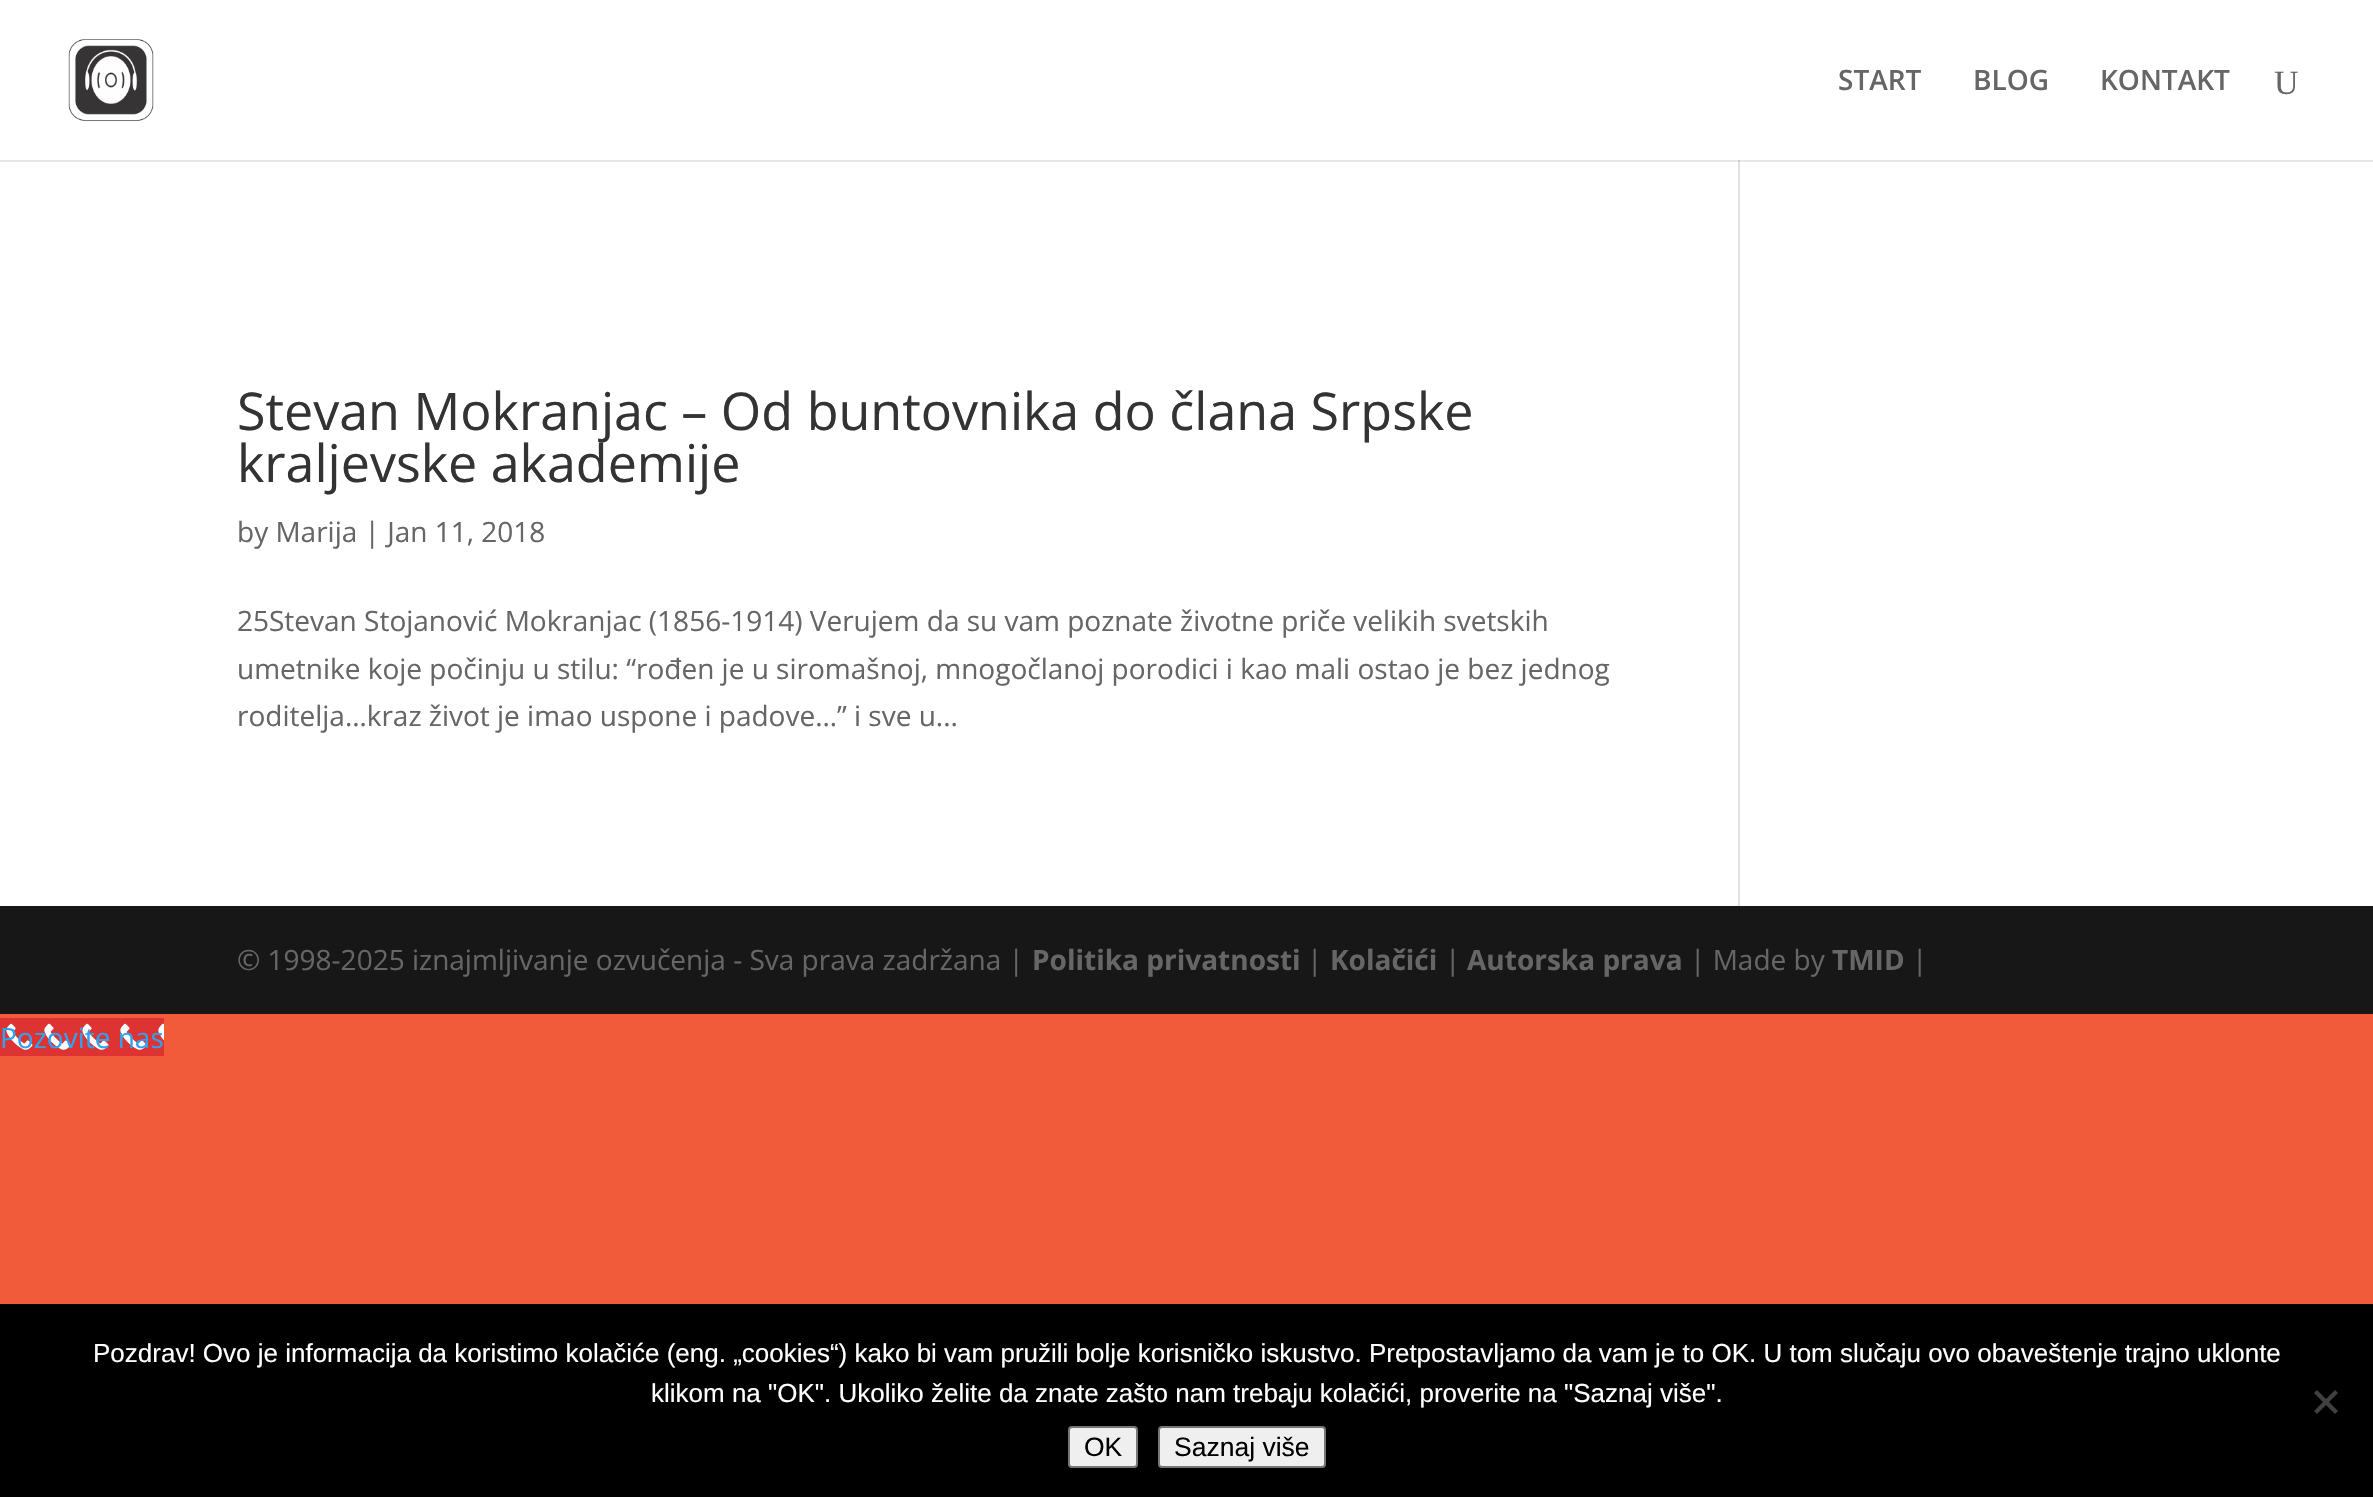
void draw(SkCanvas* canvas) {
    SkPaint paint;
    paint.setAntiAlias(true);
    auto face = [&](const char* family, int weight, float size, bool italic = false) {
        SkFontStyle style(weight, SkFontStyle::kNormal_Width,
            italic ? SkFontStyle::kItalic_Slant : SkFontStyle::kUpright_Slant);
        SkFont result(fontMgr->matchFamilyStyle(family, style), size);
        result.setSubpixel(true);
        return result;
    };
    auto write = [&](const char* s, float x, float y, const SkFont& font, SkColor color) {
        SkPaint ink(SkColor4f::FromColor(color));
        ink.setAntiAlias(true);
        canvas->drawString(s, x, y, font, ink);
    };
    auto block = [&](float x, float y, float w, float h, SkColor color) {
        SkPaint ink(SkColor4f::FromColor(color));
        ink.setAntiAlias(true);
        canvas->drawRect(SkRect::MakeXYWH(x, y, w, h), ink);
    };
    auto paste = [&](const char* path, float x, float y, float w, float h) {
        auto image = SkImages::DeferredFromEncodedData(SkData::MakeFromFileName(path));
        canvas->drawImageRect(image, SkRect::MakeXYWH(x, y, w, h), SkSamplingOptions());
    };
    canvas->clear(SkColorSetRGB(242, 91, 58));
    block(0, 0, 2373, 160, SK_ColorWHITE);
    paste("pic1.png", 68, 39, 86, 83);
    auto kFont1 = face("Open Sans", 600, 28);
    write("START", 1838, 90, kFont1, SkColorSetRGB(102, 102, 102));
    write("BLOG", 1973, 90, kFont1, SkColorSetRGB(102, 102, 102));
    write("KONTAKT", 2100, 90, kFont1, SkColorSetRGB(102, 102, 102));
    auto kFont2 = face("Liberation Serif", 400, 34);
    write("U", 2274, 94, kFont2, SkColorSetRGB(102, 102, 102));
    block(0, 162, 2373, 744, SK_ColorWHITE);
    block(0, 160, 2373, 2, SkColorSetRGB(230, 230, 230));
    auto kFont3 = face("Open Sans", 400, 52);
    write("Stevan Mokranjac – Od buntovnika do člana Srpske", 237, 430, kFont3, SkColorSetRGB(51, 51, 51));
    write("kraljevske akademije", 237, 482, kFont3, SkColorSetRGB(51, 51, 51));
    auto kFont4 = face("Open Sans", 400, 28);
    write("by Marija | Jan 11, 2018", 237, 542, kFont4, SkColorSetRGB(102, 102, 102));
    write("25Stevan Stojanović Mokranjac (1856-1914) Verujem da su vam poznate životne priče velikih svetskih", 237, 631, kFont4, SkColorSetRGB(102, 102, 102));
    write("umetnike koje počinju u stilu: “rođen je u siromašnoj, mnogočlanoj porodici i kao mali ostao je bez jednog", 237, 679, kFont4, SkColorSetRGB(102, 102, 102));
    write("roditelja…kraz život je imao uspone i padove…” i sve u...", 237, 726, kFont4, SkColorSetRGB(102, 102, 102));
    block(1738, 160, 2, 746, SkColorSetRGB(226, 226, 226));
    block(1738, 160, 2, 2, SkColorSetRGB(203, 203, 203));
    block(0, 906, 2373, 108, SkColorSetRGB(23, 23, 23));
    write("© 1998-2025 iznajmljivanje ozvučenja - Sva prava zadržana |", 237, 970, kFont4, SkColorSetRGB(102, 102, 102));
    auto kFont5 = face("Open Sans", 700, 28);
    write("Politika privatnosti", 1032, 970, kFont5, SkColorSetRGB(102, 102, 102));
    write("|", 1307, 970, kFont4, SkColorSetRGB(102, 102, 102));
    write("Kolačići", 1330, 970, kFont5, SkColorSetRGB(102, 102, 102));
    write("|", 1445, 970, kFont4, SkColorSetRGB(102, 102, 102));
    write("Autorska prava", 1467, 970, kFont5, SkColorSetRGB(102, 102, 102));
    write("| Made by", 1690, 970, kFont4, SkColorSetRGB(102, 102, 102));
    write("TMID", 1832, 970, kFont5, SkColorSetRGB(102, 102, 102));
    write("|", 1912, 970, kFont4, SkColorSetRGB(102, 102, 102));
    block(0, 1018, 164, 38, SkColorSetRGB(221, 51, 51));
    paste("pic2.png", 6, 1023, 158, 27);
    write("Pozovite nas", 0, 1048, kFont4, SkColorSetRGB(46, 163, 242));
    block(0, 1304, 2373, 193, SK_ColorBLACK);
    auto kFont6 = face("Liberation Sans", 400, 26);
    write("Pozdrav! Ovo je informacija da koristimo kolačiće (eng. „cookies“) kako bi vam pružili bolje korisničko iskustvo. Pretpostavljamo da vam je to OK. U tom slučaju ovo obaveštenje trajno uklonte", 93, 1362, kFont6, SK_ColorWHITE);
    write("klikom na \"OK\". Ukoliko želite da znate zašto nam trebaju kolačići, proverite na \"Saznaj više\".", 651, 1402, kFont6, SK_ColorWHITE);
    paint.setColor(SkColorSetRGB(64, 64, 64));
    canvas->drawPath(SkPathBuilder().moveTo(2335, 1390).lineTo(2338, 1393).lineTo(2317, 1414).lineTo(2314, 1411).close().detach(), paint);
    canvas->drawPath(SkPathBuilder().moveTo(2314, 1393).lineTo(2317, 1390).lineTo(2338, 1411).lineTo(2335, 1414).close().detach(), paint);
    paint.setColor(SkColorSetRGB(239, 239, 239));
    canvas->drawRoundRect(SkRect::MakeXYWH(1069, 1427, 68, 40), 3, 3, paint);
    paint.setStyle(SkPaint::kStroke_Style);
    paint.setStrokeWidth(2);
    paint.setColor(SkColorSetRGB(118, 118, 118));
    canvas->drawRoundRect(SkRect::MakeXYWH(1069, 1427, 68, 40), 3, 3, paint);
    auto kFont7 = face("Liberation Sans", 400, 26.5f);
    write("OK", 1084, 1456, kFont7, SK_ColorBLACK);
    paint.setStyle(SkPaint::kFill_Style);
    paint.setColor(SkColorSetRGB(239, 239, 239));
    canvas->drawRoundRect(SkRect::MakeXYWH(1159, 1427, 166, 40), 3, 3, paint);
    paint.setStyle(SkPaint::kStroke_Style);
    paint.setColor(SkColorSetRGB(118, 118, 118));
    canvas->drawRoundRect(SkRect::MakeXYWH(1159, 1427, 166, 40), 3, 3, paint);
    write("Saznaj više", 1174, 1456, kFont7, SK_ColorBLACK);
}
